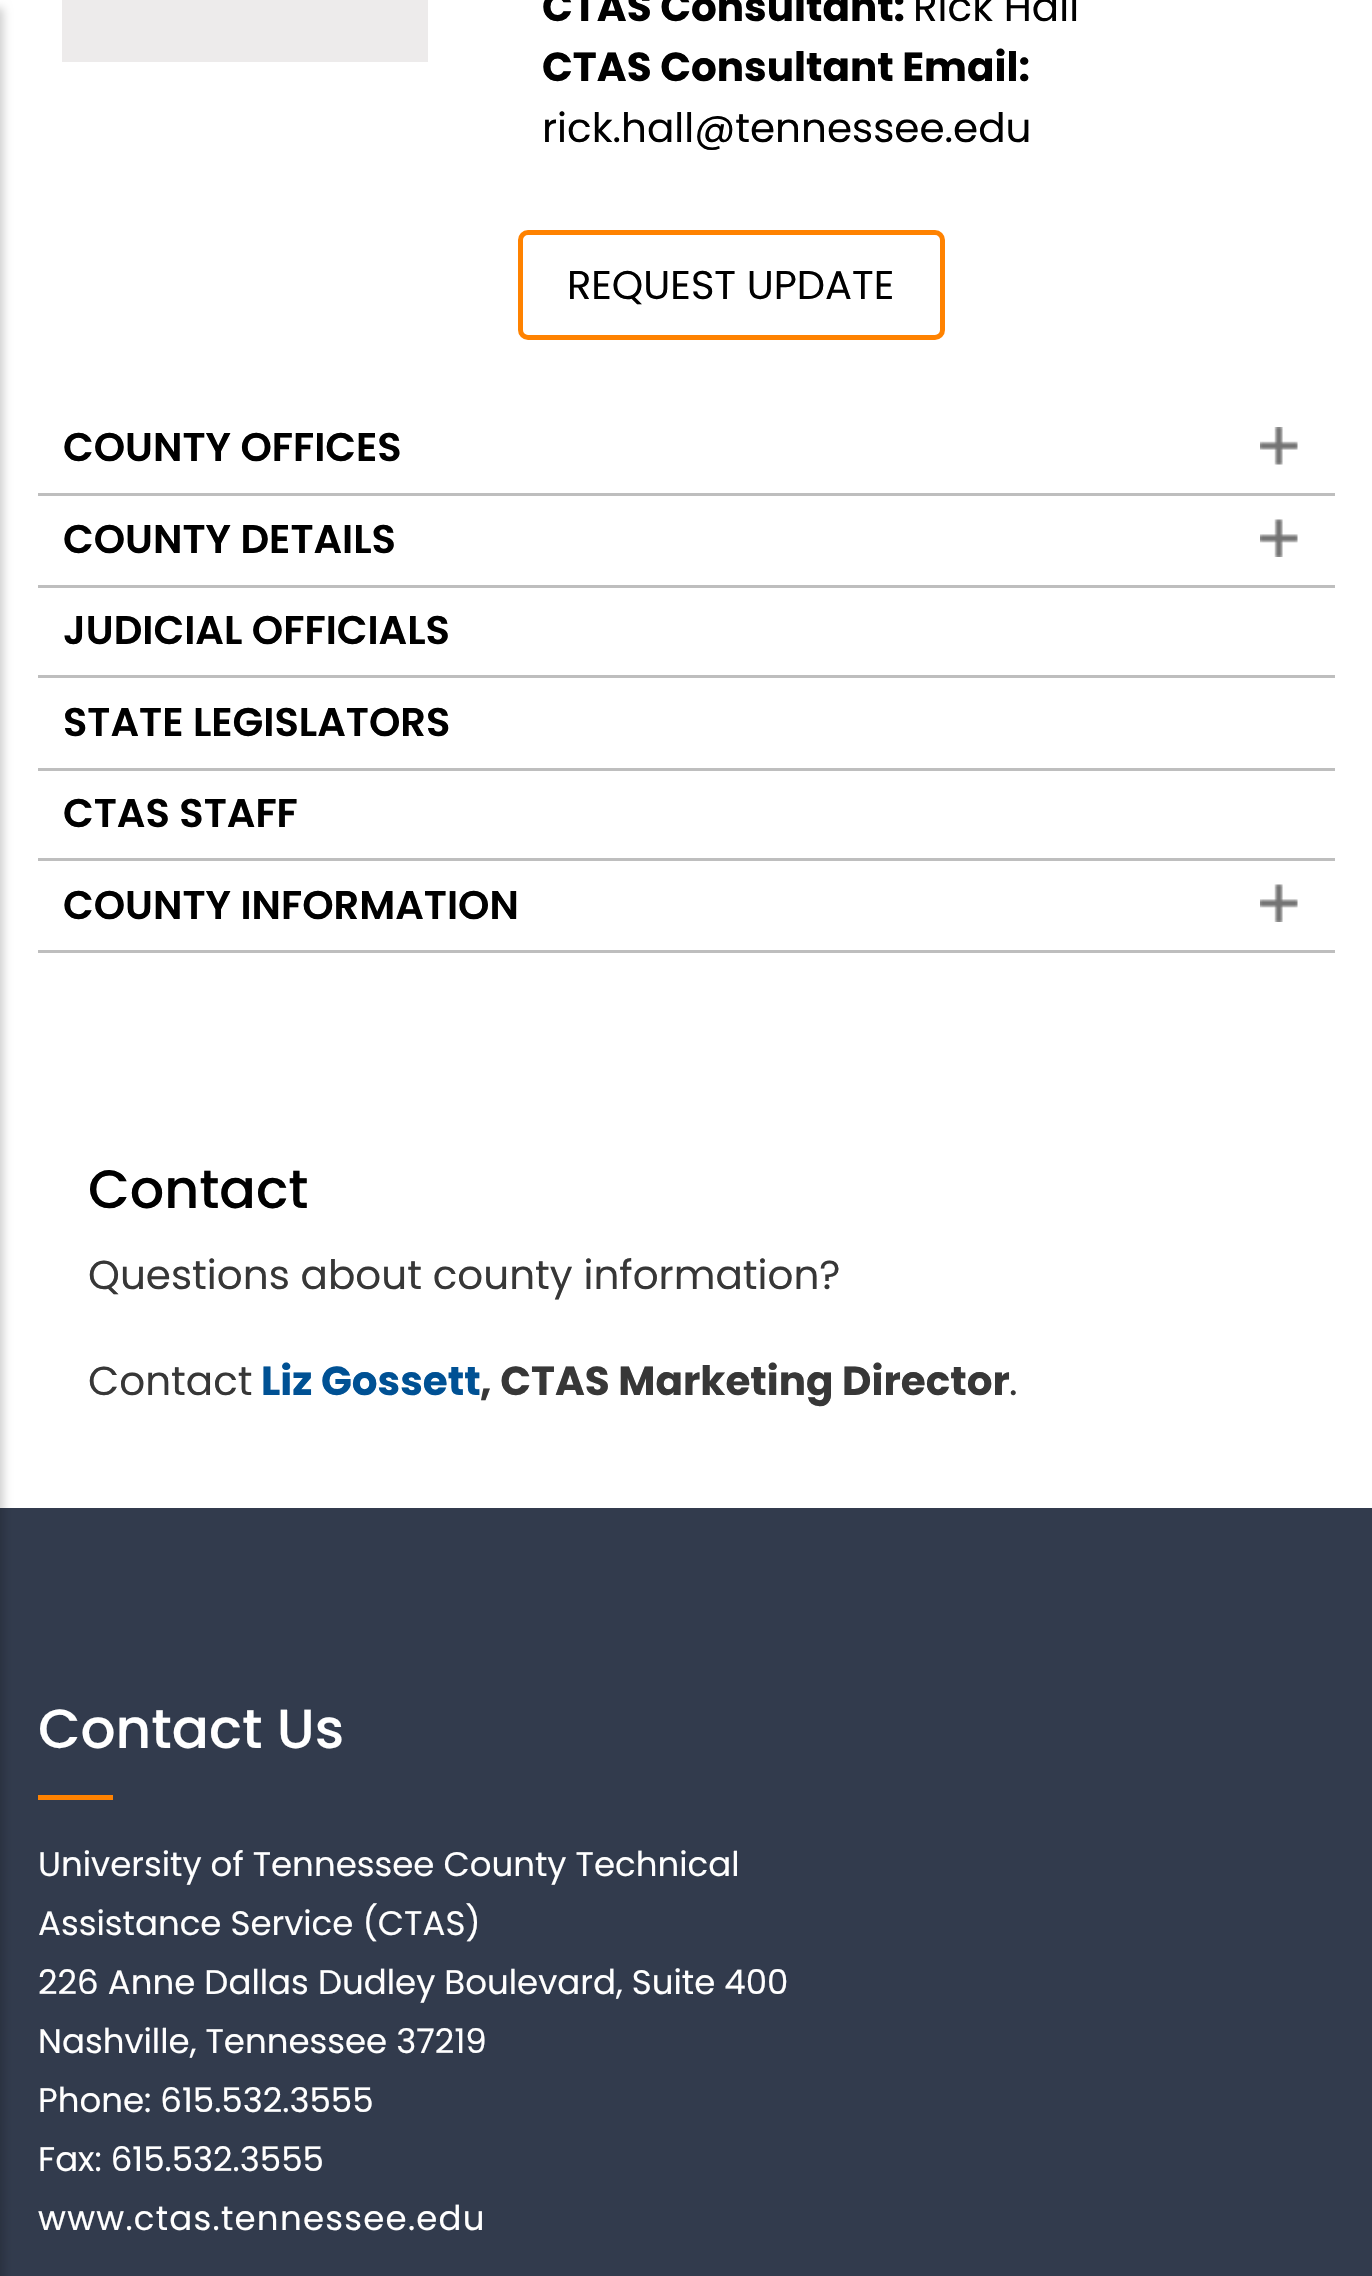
void draw(SkCanvas* canvas) {
    SkPaint paint;
    paint.setAntiAlias(true);
    auto face = [&](const char* family, int weight, float size, bool italic = false) {
        SkFontStyle style(weight, SkFontStyle::kNormal_Width,
            italic ? SkFontStyle::kItalic_Slant : SkFontStyle::kUpright_Slant);
        SkFont result(fontMgr->matchFamilyStyle(family, style), size);
        result.setSubpixel(true);
        return result;
    };
    auto write = [&](const char* s, float x, float y, const SkFont& font, SkColor color) {
        SkPaint ink(SkColor4f::FromColor(color));
        ink.setAntiAlias(true);
        canvas->drawString(s, x, y, font, ink);
    };
    auto writeSpaced = [&](const char* s, float x, float y, const SkFont& font, const SkPaint& ink, float letter, float word) {
        std::vector<SkGlyphID> glyphs(font.countText(s, strlen(s), SkTextEncoding::kUTF8));
        std::vector<float> xs(glyphs.size());
        font.textToGlyphs(s, strlen(s), SkTextEncoding::kUTF8, glyphs);
        font.getXPos(glyphs, xs, x);
        float extra = 0;
        for (size_t i = 0; i < glyphs.size(); i++) {
            xs[i] += extra;
            extra += letter + word * (glyphs[i] == font.unicharToGlyph(' '));
        }
        canvas->drawTextBlob(SkTextBlob::MakeFromPosHGlyphs(glyphs, xs, y, font), 0, 0, ink);
    };
    auto block = [&](float x, float y, float w, float h, SkColor color) {
        SkPaint ink(SkColor4f::FromColor(color));
        ink.setAntiAlias(true);
        canvas->drawRect(SkRect::MakeXYWH(x, y, w, h), ink);
    };
    auto paste = [&](const char* path, float x, float y, float w, float h) {
        auto image = SkImages::DeferredFromEncodedData(SkData::MakeFromFileName(path));
        canvas->drawImageRect(image, SkRect::MakeXYWH(x, y, w, h), SkSamplingOptions());
    };
    canvas->clear(SK_ColorWHITE);
    block(0, 1508, 1372, 768, SkColorSetRGB(50, 59, 77));
    paint.setColor(SkColorSetARGB(51, 0, 0, 0));
    paint.setMaskFilter(SkMaskFilter::MakeBlur(kNormal_SkBlurStyle, 5));
    canvas->drawRect(SkRect::MakeXYWH(-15, 8, 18, 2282), paint);
    paint.setMaskFilter(nullptr);
    block(62, 0, 366, 62, SkColorSetRGB(237, 235, 235));
    auto kFont1 = face("Poppins", 700, 40.5f);
    write("CTAS Consultant:", 542, 21, kFont1, SK_ColorBLACK);
    auto kFont2 = face("Poppins", 400, 40.5f);
    write("Rick Hall", 913, 21, kFont2, SK_ColorBLACK);
    write("CTAS Consultant Email:", 542, 81, kFont1, SK_ColorBLACK);
    write("rick.hall@tennessee.edu", 542, 142, kFont2, SK_ColorBLACK);
    paint.setStyle(SkPaint::kStroke_Style);
    paint.setStrokeWidth(5);
    paint.setColor(SkColorSetRGB(255, 130, 0));
    canvas->drawRoundRect(SkRect::MakeXYWH(520.5f, 232.5f, 422, 105), 7.5f, 7.5f, paint);
    auto kFont3 = face("Poppins", 400, 40);
    write("REQUEST UPDATE", 567, 299, kFont3, SK_ColorBLACK);
    block(38, 493, 1297, 3, SkColorSetRGB(190, 190, 190));
    auto kFont4 = face("Poppins", 600, 40);
    write("COUNTY OFFICES", 63, 461, kFont4, SK_ColorBLACK);
    paste("pic1.png", 1260, 427, 38, 38);
    block(38, 585, 1297, 3, SkColorSetRGB(190, 190, 190));
    write("COUNTY DETAILS", 63, 553, kFont4, SK_ColorBLACK);
    paste("pic2.png", 1260, 519, 38, 38);
    block(38, 675, 1297, 3, SkColorSetRGB(190, 190, 190));
    write("JUDICIAL OFFICIALS", 63, 644, kFont4, SK_ColorBLACK);
    block(38, 768, 1297, 3, SkColorSetRGB(190, 190, 190));
    write("STATE LEGISLATORS", 63, 736, kFont4, SK_ColorBLACK);
    block(38, 858, 1297, 3, SkColorSetRGB(190, 190, 190));
    write("CTAS STAFF", 63, 827, kFont4, SK_ColorBLACK);
    block(38, 950, 1297, 3, SkColorSetRGB(190, 190, 190));
    write("COUNTY INFORMATION", 63, 919, kFont4, SK_ColorBLACK);
    paste("pic2.png", 1260, 884, 38, 38);
    auto kFont5 = face("Poppins", 500, 54);
    write("Contact", 88, 1208, kFont5, SK_ColorBLACK);
    write("Questions about county information?", 88, 1289, kFont2, SkColorSetRGB(55, 55, 55));
    write("Contact", 88, 1395, kFont2, SkColorSetRGB(55, 55, 55));
    write("Liz Gossett", 261, 1395, kFont1, SkColorSetRGB(0, 81, 148));
    write(", CTAS Marketing Director", 480, 1395, kFont1, SkColorSetRGB(55, 55, 55));
    write(".", 1009, 1395, kFont2, SkColorSetRGB(55, 55, 55));
    auto kFont6 = face("Poppins", 500, 55);
    write("Contact Us", 38, 1748, kFont6, SK_ColorWHITE);
    block(38, 1795, 75, 5, SkColorSetRGB(255, 130, 0));
    auto kFont7 = face("Poppins", 400, 34);
    write("University of Tennessee County Technical", 38, 1876, kFont7, SK_ColorWHITE);
    write("Assistance Service (CTAS)", 38, 1935, kFont7, SK_ColorWHITE);
    write("226 Anne Dallas Dudley Boulevard, Suite 400", 38, 1994, kFont7, SK_ColorWHITE);
    write("Nashville, Tennessee 37219", 38, 2053, kFont7, SK_ColorWHITE);
    write("Phone: 615.532.3555", 38, 2112, kFont7, SK_ColorWHITE);
    write("Fax: 615.532.3555", 38, 2171, kFont7, SK_ColorWHITE);
    paint.setStyle(SkPaint::kFill_Style);
    paint.setColor(SK_ColorWHITE);
    writeSpaced("www.ctas.tennessee.edu", 38, 2230, kFont7, paint, 1.25f, 0);
}
